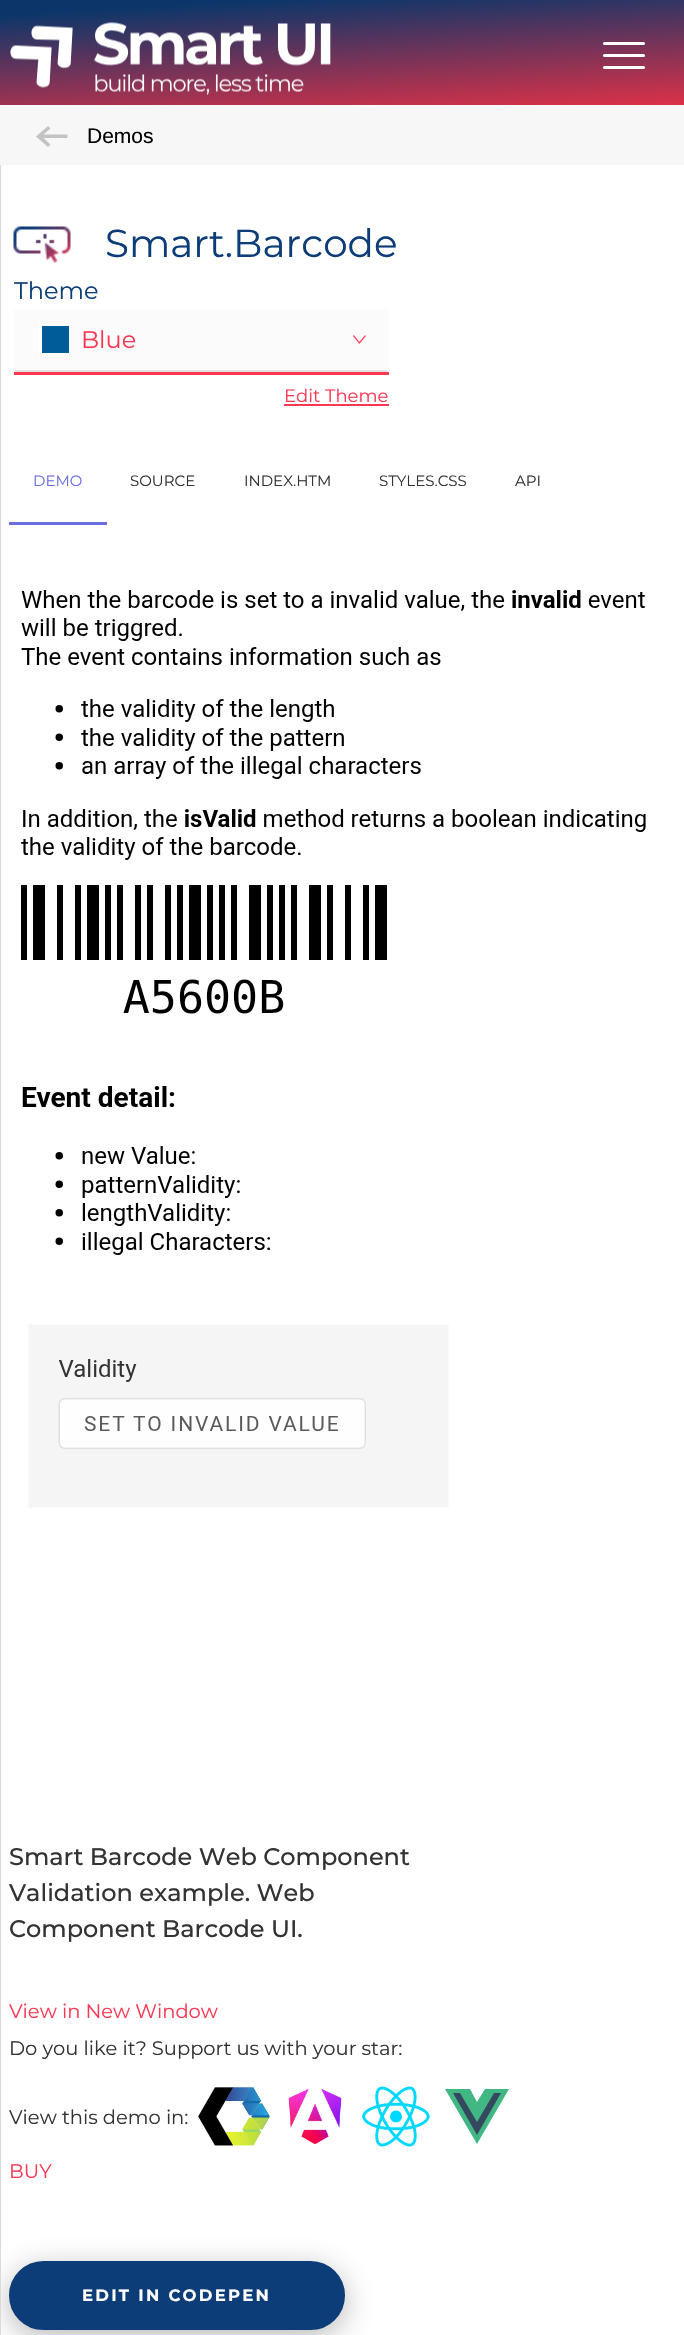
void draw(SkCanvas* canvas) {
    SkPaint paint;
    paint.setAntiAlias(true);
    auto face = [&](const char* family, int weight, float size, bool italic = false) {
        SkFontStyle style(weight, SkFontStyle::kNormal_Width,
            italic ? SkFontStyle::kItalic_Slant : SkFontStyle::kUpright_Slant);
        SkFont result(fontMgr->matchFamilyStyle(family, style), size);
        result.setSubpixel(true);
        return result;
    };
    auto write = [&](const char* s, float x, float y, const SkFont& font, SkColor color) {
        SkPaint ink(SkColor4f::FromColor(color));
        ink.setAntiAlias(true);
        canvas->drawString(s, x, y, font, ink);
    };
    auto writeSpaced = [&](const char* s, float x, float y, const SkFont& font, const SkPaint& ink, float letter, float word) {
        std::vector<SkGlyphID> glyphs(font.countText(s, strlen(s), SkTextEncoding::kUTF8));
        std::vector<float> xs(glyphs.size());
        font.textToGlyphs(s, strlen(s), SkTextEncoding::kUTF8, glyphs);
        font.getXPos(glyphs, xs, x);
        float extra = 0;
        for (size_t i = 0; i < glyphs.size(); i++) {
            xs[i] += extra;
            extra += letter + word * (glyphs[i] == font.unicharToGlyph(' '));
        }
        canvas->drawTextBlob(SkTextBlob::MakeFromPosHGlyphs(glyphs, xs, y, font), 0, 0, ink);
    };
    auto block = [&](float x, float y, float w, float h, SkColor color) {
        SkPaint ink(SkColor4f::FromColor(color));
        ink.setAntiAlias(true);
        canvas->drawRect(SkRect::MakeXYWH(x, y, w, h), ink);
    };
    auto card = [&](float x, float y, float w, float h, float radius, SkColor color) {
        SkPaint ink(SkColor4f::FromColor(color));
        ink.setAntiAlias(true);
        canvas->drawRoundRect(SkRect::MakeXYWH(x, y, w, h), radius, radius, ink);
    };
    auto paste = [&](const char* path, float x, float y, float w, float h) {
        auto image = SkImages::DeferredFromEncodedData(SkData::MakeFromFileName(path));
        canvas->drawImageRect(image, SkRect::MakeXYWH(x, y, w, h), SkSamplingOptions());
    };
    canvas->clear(SK_ColorWHITE);
    {
        const SkColor colors[] = {SkColorSetRGB(12, 54, 105), SkColorSetRGB(218, 49, 72)};
        const float stops[] = {0.1f, 1};
        const SkPoint ends[] = {{338, -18}, {346, 123}};
        paint.setShader(SkGradientShader::MakeLinear(ends, colors, stops, 2, SkTileMode::kClamp));
        paint.setAlpha(255);
    }
    canvas->drawRect(SkRect::MakeXYWH(0, 0, 684, 105), paint);
    paste("pic1.png", 10, 22, 321, 73);
    card(603, 42, 42, 3, 1.5f, SK_ColorWHITE);
    card(603, 54, 42, 3, 1.5f, SK_ColorWHITE);
    card(603, 66, 42, 3, 1.5f, SK_ColorWHITE);
    block(0, 105, 684, 60, SkColorSetRGB(247, 247, 247));
    paint.setShader(nullptr);
    paint.setColor(SkColorSetRGB(195, 195, 195));
    canvas->drawPath(SkPathBuilder().moveTo(43.5f, 138).lineTo(67.5f, 138).lineTo(67.5f, 134.5f).lineTo(43.5f, 134.5f).lineTo(50.5f, 128.5f).lineTo(48, 126).lineTo(36, 136.5f).lineTo(48, 147).lineTo(50.5f, 144.5f).close().detach(), paint);
    auto kFont1 = face("Liberation Sans", 400, 21);
    write("Demos", 87, 143, kFont1, SK_ColorBLACK);
    paint.setColor(SkColorSetARGB(89, 51, 51, 51));
    paint.setMaskFilter(SkMaskFilter::MakeBlur(kNormal_SkBlurStyle, 15));
    canvas->drawRoundRect(SkRect::MakeXYWH(9, 2268, 336, 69), 34.5f, 34.5f, paint);
    paint.setMaskFilter(nullptr);
    block(0, 165, 1, 2170, SkColorSetRGB(218, 218, 220));
    paste("pic2.png", 13, 226, 58, 37);
    auto kFont2 = face("Montserrat", 400, 39);
    write("Smart.Barcode", 105, 257, kFont2, SkColorSetRGB(12, 61, 120));
    auto kFont3 = face("Montserrat", 400, 24);
    write("Theme", 14, 299, kFont3, SkColorSetRGB(12, 61, 120));
    block(14, 372, 375, 3, SkColorSetRGB(252, 55, 82));
    block(14, 309, 375, 63, SkColorSetRGB(251, 251, 252));
    paint.setColor(SkColorSetRGB(226, 226, 227));
    canvas->drawPath(SkPathBuilder().moveTo(388, 372).lineTo(14, 372).lineTo(15, 370).lineTo(387, 370).close().detach(), paint);
    paint.setColor(SkColorSetRGB(0, 92, 153));
    canvas->drawRect(SkRect::MakeXYWH(40.5f, 324.5f, 30, 30), paint);
    paint.setStyle(SkPaint::kStroke_Style);
    paint.setStrokeWidth(3);
    paint.setColor(SK_ColorWHITE);
    canvas->drawRect(SkRect::MakeXYWH(40.5f, 324.5f, 30, 30), paint);
    write("Blue", 81, 348, kFont3, SkColorSetRGB(252, 55, 82));
    paste("pic3.png", 353, 335, 13, 9);
    auto kFont4 = face("Montserrat", 400, 18);
    write("Edit Theme", 284, 402, kFont4, SkColorSetRGB(252, 55, 82));
    block(284, 404, 105, 2, SkColorSetRGB(252, 55, 82));
    auto kFont5 = face("Montserrat", 400, 15);
    write("DEMO", 33, 486, kFont5, SkColorSetRGB(106, 110, 226));
    write("SOURCE", 130, 486, kFont5, SkColorSetRGB(51, 51, 51));
    write("INDEX.HTM", 244, 486, kFont5, SkColorSetRGB(51, 51, 51));
    write("STYLES.CSS", 379, 486, kFont5, SkColorSetRGB(51, 51, 51));
    write("API", 515, 486, kFont5, SkColorSetRGB(51, 51, 51));
    block(9, 522, 98, 3, SkColorSetRGB(106, 110, 226));
    paste("pic4.png", 21, 590, 625, 918);
    auto kFont6 = face("Montserrat", 500, 24);
    write("Smart Barcode Web Component", 9, 1865, kFont6, SkColorSetRGB(51, 51, 51));
    write("Validation example. Web", 9, 1901, kFont6, SkColorSetRGB(51, 51, 51));
    write("Component Barcode UI.", 9, 1937, kFont6, SkColorSetRGB(51, 51, 51));
    auto kFont7 = face("Montserrat", 400, 19.5f);
    write("View in New Window", 9, 2018, kFont7, SkColorSetRGB(252, 55, 82));
    write("Do you like it? Support us with your star:", 9, 2055, kFont7, SkColorSetRGB(51, 51, 51));
    write("View this demo in:", 9, 2124, kFont7, SkColorSetRGB(51, 51, 51));
    paste("pic5.png", 198, 2087, 72, 59);
    paste("pic6.png", 288, 2088, 54, 57);
    paste("pic7.png", 362, 2086, 68, 61);
    paint.setStyle(SkPaint::kFill_Style);
    paint.setColor(SkColorSetRGB(65, 184, 131));
    canvas->drawPath(SkPathBuilder().moveTo(496, 2089).lineTo(485, 2089).lineTo(477, 2102).lineTo(470, 2089).lineTo(445, 2089).lineTo(477, 2144).lineTo(509, 2089).close().detach(), paint);
    paint.setColor(SkColorSetRGB(53, 73, 94));
    canvas->drawPath(SkPathBuilder().moveTo(453, 2093).lineTo(460, 2093).lineTo(477, 2122).lineTo(494, 2093).lineTo(501, 2093).lineTo(477, 2135).close().detach(), paint);
    write("BUY", 9, 2178, kFont7, SkColorSetRGB(252, 55, 82));
    paint.setColor(SkColorSetRGB(12, 61, 120));
    canvas->drawRoundRect(SkRect::MakeXYWH(10.5f, 2262.5f, 333, 66), 33, 33, paint);
    paint.setStyle(SkPaint::kStroke_Style);
    canvas->drawRoundRect(SkRect::MakeXYWH(10.5f, 2262.5f, 333, 66), 33, 33, paint);
    auto kFont8 = face("Montserrat", 700, 16.5f);
    paint.setStyle(SkPaint::kFill_Style);
    paint.setColor(SK_ColorWHITE);
    writeSpaced("EDIT IN CODEPEN", 82, 2301, kFont8, paint, 2.25f, 0);
}
